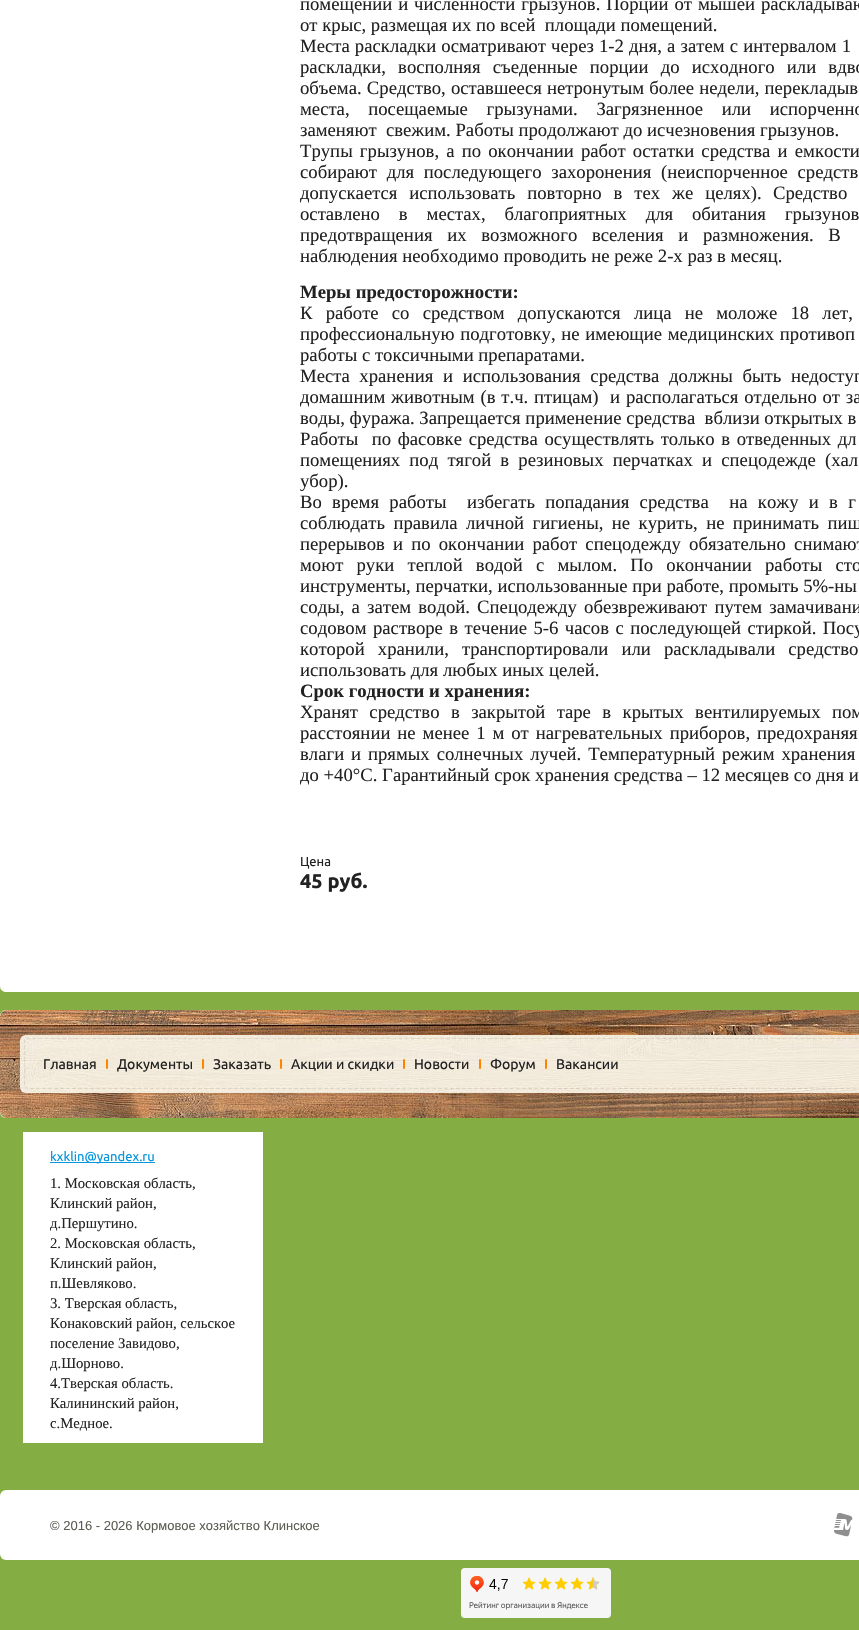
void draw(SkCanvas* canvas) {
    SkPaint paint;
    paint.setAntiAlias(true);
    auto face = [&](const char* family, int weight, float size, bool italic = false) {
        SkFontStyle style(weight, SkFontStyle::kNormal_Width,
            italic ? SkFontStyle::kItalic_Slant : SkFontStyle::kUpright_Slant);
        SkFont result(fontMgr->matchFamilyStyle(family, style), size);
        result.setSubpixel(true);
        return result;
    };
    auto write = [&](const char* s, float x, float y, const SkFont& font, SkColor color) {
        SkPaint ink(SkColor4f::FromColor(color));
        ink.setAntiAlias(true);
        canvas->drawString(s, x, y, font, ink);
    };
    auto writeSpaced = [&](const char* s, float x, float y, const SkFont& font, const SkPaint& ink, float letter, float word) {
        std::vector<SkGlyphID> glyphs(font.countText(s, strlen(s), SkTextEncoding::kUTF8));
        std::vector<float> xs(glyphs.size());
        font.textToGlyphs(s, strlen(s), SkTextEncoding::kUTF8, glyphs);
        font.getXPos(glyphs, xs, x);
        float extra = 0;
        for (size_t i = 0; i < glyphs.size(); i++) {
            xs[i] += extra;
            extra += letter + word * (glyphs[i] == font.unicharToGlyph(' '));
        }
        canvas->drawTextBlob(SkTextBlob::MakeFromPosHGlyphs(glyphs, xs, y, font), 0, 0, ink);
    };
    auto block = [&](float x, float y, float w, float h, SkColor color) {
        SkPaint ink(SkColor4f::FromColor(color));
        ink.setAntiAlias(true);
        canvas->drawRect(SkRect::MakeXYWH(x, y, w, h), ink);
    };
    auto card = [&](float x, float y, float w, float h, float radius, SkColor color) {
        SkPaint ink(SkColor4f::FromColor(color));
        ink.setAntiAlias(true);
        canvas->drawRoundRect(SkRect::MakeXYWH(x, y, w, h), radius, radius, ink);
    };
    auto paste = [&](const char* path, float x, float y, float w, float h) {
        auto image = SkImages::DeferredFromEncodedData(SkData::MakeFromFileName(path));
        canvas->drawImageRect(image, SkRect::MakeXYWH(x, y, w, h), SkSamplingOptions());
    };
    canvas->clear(SkColorSetRGB(132, 174, 67));
    paint.setColor(SK_ColorWHITE);
    canvas->drawPath(SkPathBuilder().moveTo(0, -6).lineTo(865, -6).lineTo(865, 986).cubicTo(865, 989.5f, 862.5f, 992, 859, 992).lineTo(6, 992).cubicTo(2.5f, 992, 0, 989.5f, 0, 986).close().detach(), paint);
    auto kFont1 = face("Liberation Serif", 400, 18.7f);
    paint.setColor(SkColorSetRGB(34, 34, 34));
    writeSpaced("помещений и численности грызунов. Порции от мышей раскладываю", 300, 10, kFont1, paint, 0, 1.25f);
    write("от крыс, размещая их по всей  площади помещений.", 300, 31, kFont1, SkColorSetRGB(34, 34, 34));
    writeSpaced("Места раскладки осматривают через 1-2 дня, а затем с интервалом 1", 300, 52, kFont1, paint, 0, 0.5f);
    writeSpaced("раскладки, восполняя съеденные порции до исходного или вдво", 300, 73, kFont1, paint, 0, 7.5f);
    writeSpaced("объема. Средство, оставшееся нетронутым более недели, перекладыв", 300, 94, kFont1, paint, 0, 0.5f);
    writeSpaced("места, посещаемые грызунами. Загрязненное или испорченно", 300, 115, kFont1, paint, 0, 14);
    write("заменяют  свежим. Работы продолжают до исчезновения грызунов.", 300, 136, kFont1, SkColorSetRGB(34, 34, 34));
    writeSpaced("Трупы грызунов, а по окончании работ остатки средства и емкости", 300, 157, kFont1, paint, 0, 2.5f);
    writeSpaced("собирают для последующего захоронения (неиспорченное средств", 300, 178, kFont1, paint, 0, 5);
    writeSpaced("допускается использовать повторно в тех же целях).", 300, 199, kFont1, paint, 0, 7.25f);
    writeSpaced("Средство", 773, 199, kFont1, paint, 0, 7.25f);
    writeSpaced("оставлено в местах, благоприятных для обитания грызунов", 300, 220, kFont1, paint, 0, 14.25f);
    writeSpaced("предотвращения их возможного вселения и размножения. В", 300, 241, kFont1, paint, 0, 10);
    write("наблюдения необходимо проводить не реже 2-х раз в месяц.", 300, 262, kFont1, SkColorSetRGB(34, 34, 34));
    auto kFont2 = face("Liberation Serif", 700, 18.7f);
    write("Меры предосторожности:", 300, 298, kFont2, SkColorSetRGB(34, 34, 34));
    writeSpaced("К работе со средством допускаются лица не моложе 18 лет,", 300, 319, kFont1, paint, 0, 8.5f);
    writeSpaced("профессиональную подготовку, не имеющие медицинских противоп", 300, 340, kFont1, paint, 0, 1);
    write("работы с токсичными препаратами.", 300, 361, kFont1, SkColorSetRGB(34, 34, 34));
    writeSpaced("Места хранения и использования средства должны быть недоступ", 300, 382, kFont1, paint, 0, 5);
    writeSpaced("домашним животным (в т.ч. птицам)  и располагаться отдельно от за", 300, 403, kFont1, paint, 0, 1.1f);
    write("воды, фуража. Запрещается применение средства  вблизи открытых в", 300, 424, kFont1, SkColorSetRGB(34, 34, 34));
    writeSpaced("Работы  по фасовке средства осуществлять только в отведенных дл", 300, 445, kFont1, paint, 0, 2);
    writeSpaced("помещениях под тягой в резиновых перчатках и спецодежде (хал", 300, 466, kFont1, paint, 0, 4.5f);
    write("убор).", 300, 487, kFont1, SkColorSetRGB(34, 34, 34));
    writeSpaced("Во время работы  избегать попадания средства  на кожу и в г", 300, 508, kFont1, paint, 0, 5.6f);
    writeSpaced("соблюдать правила личной гигиены, не курить, не принимать пищ", 300, 529, kFont1, paint, 0, 3.75f);
    writeSpaced("перерывов и по окончании работ спецодежду обязательно снимают", 300, 550, kFont1, paint, 0, 3.5f);
    writeSpaced("моют руки теплой водой с мылом. По окончании работы сто", 300, 571, kFont1, paint, 0, 8.5f);
    write("инструменты, перчатки, использованные при работе, промыть 5%-ны", 300, 592, kFont1, SkColorSetRGB(34, 34, 34));
    writeSpaced("соды, а затем водой. Спецодежду обезвреживают путем замачивани", 300, 613, kFont1, paint, 0, 2.5f);
    writeSpaced("содовом растворе в течение 5-6 часов с последующей стиркой. Посу", 300, 634, kFont1, paint, 0, 1.75f);
    writeSpaced("которой хранили, транспортировали или раскладывали средство", 300, 655, kFont1, paint, 0, 8.5f);
    write("использовать для любых иных целей.", 300, 676, kFont1, SkColorSetRGB(34, 34, 34));
    write("Срок годности и хранения:", 300, 697, kFont2, SkColorSetRGB(34, 34, 34));
    writeSpaced("Хранят средство в закрытой таре в крытых вентилируемых пом", 300, 718, kFont1, paint, 0, 6.75f);
    writeSpaced("расстоянии не менее 1 м от нагревательных приборов, предохраняя", 300, 739, kFont1, paint, 0, 2.25f);
    writeSpaced("влаги и прямых солнечных лучей. Температурный режим хранения", 300, 760, kFont1, paint, 0, 2.25f);
    write("до +40°С. Гарантийный срок хранения средства – 12 месяцев со дня и", 300, 781, kFont1, SkColorSetRGB(34, 34, 34));
    auto kFont3 = face("Ubuntu", 400, 13);
    write("Цена", 300, 866, kFont3, SkColorSetRGB(34, 34, 34));
    auto kFont4 = face("Ubuntu", 700, 20);
    write("45 руб.", 300, 888, kFont4, SkColorSetRGB(34, 34, 34));
    paste("pic1.png", 0, 1010, 859, 108);
    paste("pic2.png", 20, 1035, 839, 58);
    auto kFont5 = face("Ubuntu", 400, 14);
    write("Главная", 43, 1069, kFont5, SkColorSetRGB(34, 34, 34));
    paste("pic3.png", 106, 1059, 2, 10);
    write("Документы", 117, 1069, kFont5, SkColorSetRGB(34, 34, 34));
    paste("pic4.png", 202, 1059, 2, 10);
    write("Заказать", 213, 1069, kFont5, SkColorSetRGB(34, 34, 34));
    paste("pic5.png", 280, 1059, 2, 10);
    write("Акции и скидки", 291, 1069, kFont5, SkColorSetRGB(34, 34, 34));
    paste("pic6.png", 403, 1059, 2, 10);
    write("Новости", 414, 1069, kFont5, SkColorSetRGB(34, 34, 34));
    paste("pic7.png", 479, 1059, 2, 10);
    write("Форум", 490, 1069, kFont5, SkColorSetRGB(34, 34, 34));
    paste("pic8.png", 545, 1059, 2, 10);
    write("Вакансии", 556, 1069, kFont5, SkColorSetRGB(34, 34, 34));
    paint.setColor(SK_ColorWHITE);
    canvas->drawRoundRect(SkRect::MakeXYWH(21.5f, 1130.5f, 243, 314), 1.5f, 1.5f, paint);
    paint.setStyle(SkPaint::kStroke_Style);
    paint.setStrokeWidth(3);
    paint.setColor(SkColorSetRGB(132, 174, 67));
    canvas->drawRoundRect(SkRect::MakeXYWH(21.5f, 1130.5f, 243, 314), 1.5f, 1.5f, paint);
    block(50, 1162, 105, 1, SkColorSetRGB(8, 150, 221));
    write("kxklin@yandex.ru", 50, 1161, kFont3, SkColorSetRGB(8, 150, 221));
    auto kFont6 = face("Liberation Serif", 400, 14.7f);
    write("1. Московская область,", 50, 1188, kFont6, SkColorSetRGB(34, 34, 34));
    write("Клинский район,", 50, 1208, kFont6, SkColorSetRGB(34, 34, 34));
    write("д.Першутино.", 50, 1228, kFont6, SkColorSetRGB(34, 34, 34));
    write("2. Московская область,", 50, 1248, kFont6, SkColorSetRGB(34, 34, 34));
    write("Клинский район,", 50, 1268, kFont6, SkColorSetRGB(34, 34, 34));
    write("п.Шевляково.", 50, 1288, kFont6, SkColorSetRGB(34, 34, 34));
    write("3. Тверская область,", 50, 1308, kFont6, SkColorSetRGB(34, 34, 34));
    write("Конаковский район, сельское", 50, 1328, kFont6, SkColorSetRGB(34, 34, 34));
    write("поселение Завидово,", 50, 1348, kFont6, SkColorSetRGB(34, 34, 34));
    write("д.Шорново.", 50, 1368, kFont6, SkColorSetRGB(34, 34, 34));
    write("4.Тверская область.", 50, 1388, kFont6, SkColorSetRGB(34, 34, 34));
    write("Калининский район,", 50, 1408, kFont6, SkColorSetRGB(34, 34, 34));
    write("с.Медное.", 50, 1428, kFont6, SkColorSetRGB(34, 34, 34));
    card(0, 1490, 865, 70, 6, SK_ColorWHITE);
    auto kFont7 = face("Liberation Sans", 400, 13);
    write("© 2016 - 2026 Кормовое хозяйство Клинское", 50, 1530, kFont7, SkColorSetRGB(90, 93, 82));
    paste("pic9.png", 834, 1513, 19, 24);
    paste("pic10.png", 461, 1568, 150, 50);
}
